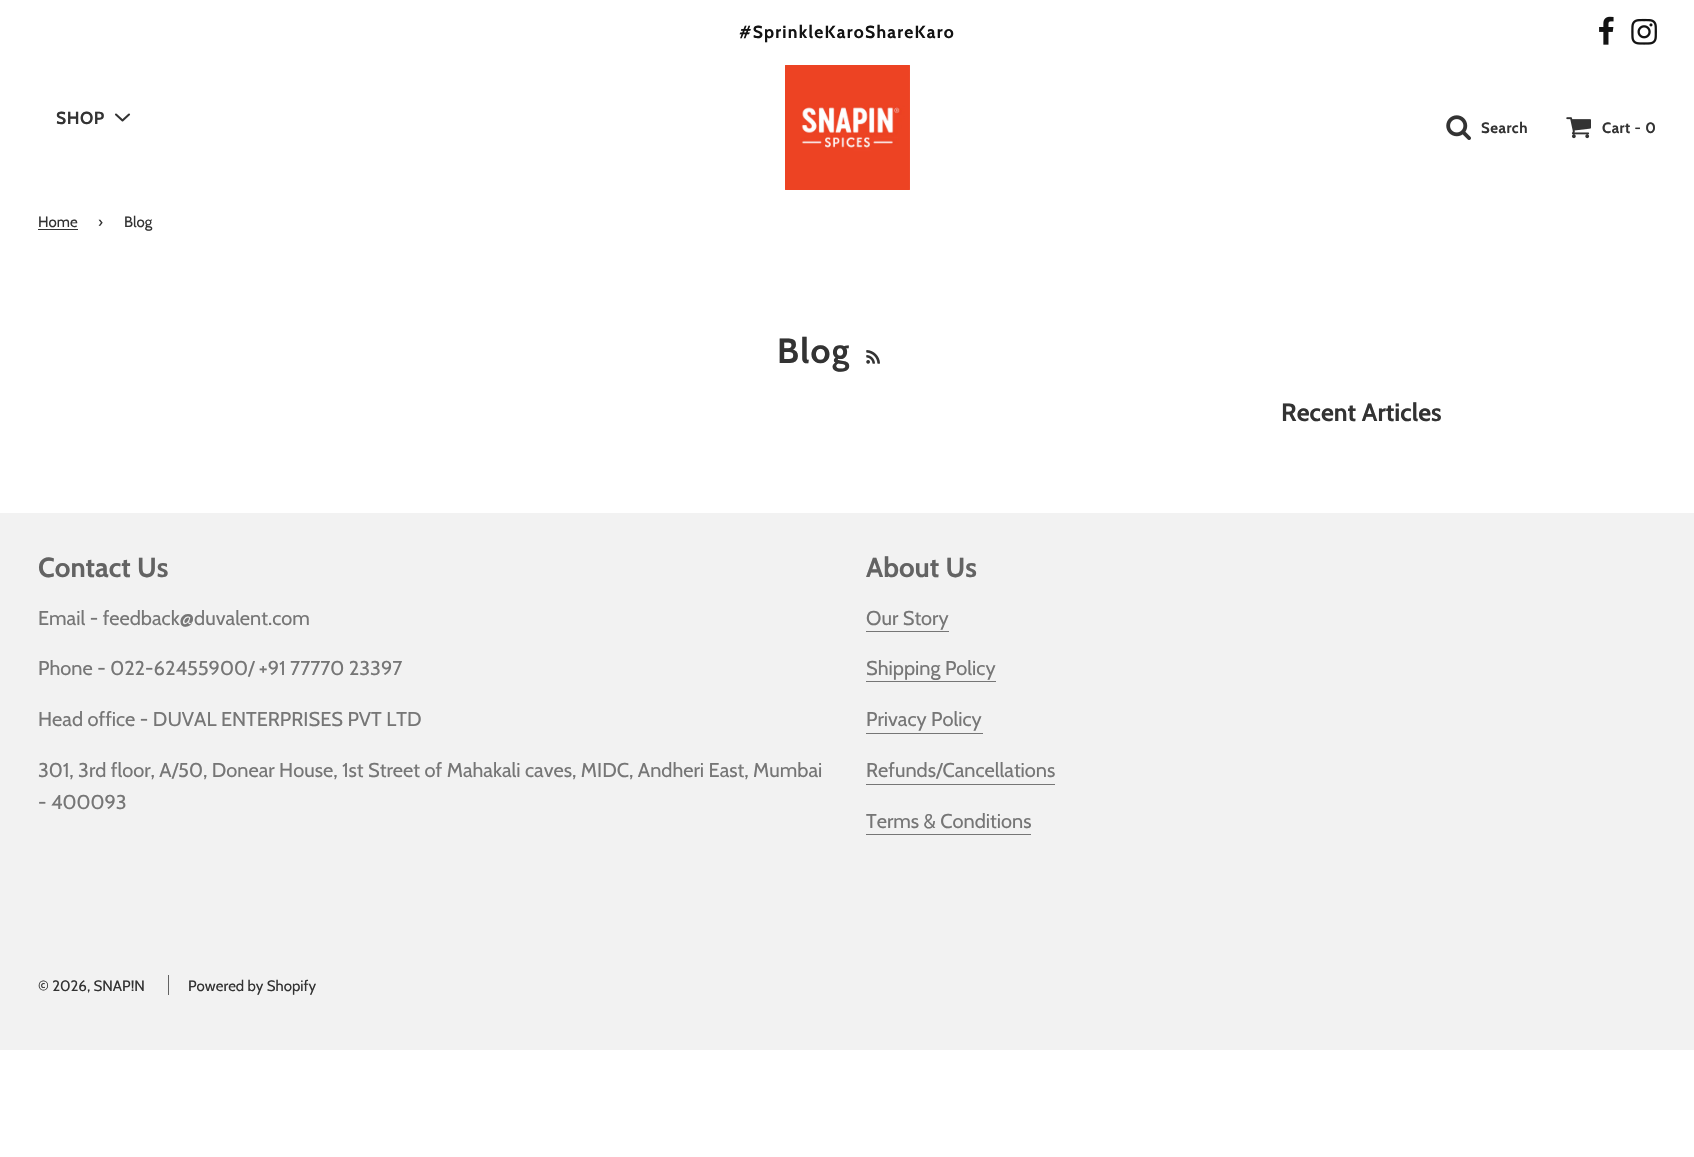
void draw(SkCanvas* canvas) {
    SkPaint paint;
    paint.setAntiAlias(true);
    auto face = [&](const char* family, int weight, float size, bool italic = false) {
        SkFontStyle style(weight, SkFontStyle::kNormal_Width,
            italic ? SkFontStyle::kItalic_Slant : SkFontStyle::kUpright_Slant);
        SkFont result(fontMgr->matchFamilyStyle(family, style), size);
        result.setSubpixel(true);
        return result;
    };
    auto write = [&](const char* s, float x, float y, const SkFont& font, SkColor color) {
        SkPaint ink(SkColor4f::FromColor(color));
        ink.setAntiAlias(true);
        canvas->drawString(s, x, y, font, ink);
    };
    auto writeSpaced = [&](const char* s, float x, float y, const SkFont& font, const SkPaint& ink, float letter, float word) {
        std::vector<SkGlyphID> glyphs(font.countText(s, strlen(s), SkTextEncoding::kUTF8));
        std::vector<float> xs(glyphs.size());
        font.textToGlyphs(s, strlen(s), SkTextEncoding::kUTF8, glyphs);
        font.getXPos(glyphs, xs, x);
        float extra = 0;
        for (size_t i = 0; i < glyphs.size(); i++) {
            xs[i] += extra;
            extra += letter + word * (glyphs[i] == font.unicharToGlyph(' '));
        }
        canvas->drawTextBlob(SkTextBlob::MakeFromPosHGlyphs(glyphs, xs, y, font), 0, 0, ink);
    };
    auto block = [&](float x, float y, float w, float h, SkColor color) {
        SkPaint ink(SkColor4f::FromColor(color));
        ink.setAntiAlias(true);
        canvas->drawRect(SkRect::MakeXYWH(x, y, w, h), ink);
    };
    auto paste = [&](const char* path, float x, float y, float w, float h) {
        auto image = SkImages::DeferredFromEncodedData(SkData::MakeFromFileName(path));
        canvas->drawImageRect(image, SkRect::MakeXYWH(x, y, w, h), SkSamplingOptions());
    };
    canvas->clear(SK_ColorWHITE);
    auto kFont1 = face("Cabin", 700, 17.5f);
    paint.setColor(SkColorSetRGB(19, 19, 19));
    writeSpaced("#SprinkleKaroShareKaro", 739, 38, kFont1, paint, 1.25f, 0);
    paste("pic1.png", 1599, 16, 15, 29);
    paste("pic2.png", 1631, 18, 26, 27);
    paint.setColor(SkColorSetRGB(51, 51, 51));
    writeSpaced("SHOP", 56, 124, kFont1, paint, 0.5f, 0);
    paint.setStyle(SkPaint::kStroke_Style);
    paint.setStrokeWidth(2.1f);
    paint.setStrokeCap(SkPaint::kRound_Cap);
    paint.setStrokeJoin(SkPaint::kRound_Join);
    canvas->drawPath(SkPathBuilder().moveTo(116, 114.5f).lineTo(122.5f, 120.5f).lineTo(129, 114.5f).detach(), paint);
    paste("pic3.png", 785, 65, 125, 125);
    paste("pic4.png", 1446, 115, 25, 25);
    auto kFont2 = face("Cabin", 700, 15);
    paint.setStyle(SkPaint::kFill_Style);
    writeSpaced("Search", 1481, 133, kFont2, paint, 0.5f, 0);
    paste("pic5.png", 1566, 117, 25, 22);
    writeSpaced("Cart - 0", 1602, 133, kFont2, paint, 0.5f, 0);
    auto kFont3 = face("Cabin", 400, 15);
    write("Home", 38, 227, kFont3, SkColorSetRGB(51, 51, 51));
    block(38, 229, 40, 1, SkColorSetRGB(51, 51, 51));
    write("›", 98, 227, kFont3, SkColorSetRGB(51, 51, 51));
    write("Blog", 124, 227, kFont3, SkColorSetRGB(51, 51, 51));
    auto kFont4 = face("Cabin", 700, 35);
    writeSpaced("Blog", 777, 363, kFont4, paint, 1.25f, 0);
    paste("pic6.png", 866, 350, 14, 14);
    auto kFont5 = face("Cabin", 700, 25);
    write("Recent Articles", 1281, 421, kFont5, SkColorSetRGB(51, 51, 51));
    block(0, 513, 1694, 537, SkColorSetRGB(242, 242, 242));
    auto kFont6 = face("Cabin", 700, 27.5f);
    write("Contact Us", 38, 577, kFont6, SkColorSetRGB(99, 99, 99));
    auto kFont7 = face("Cabin", 400, 20);
    write("Email - feedback@duvalent.com", 38, 625, kFont7, SkColorSetRGB(118, 118, 118));
    write("Phone - 022-62455900/ +91 77770 23397", 38, 675, kFont7, SkColorSetRGB(118, 118, 118));
    write("Head office - DUVAL ENTERPRISES PVT LTD", 38, 726, kFont7, SkColorSetRGB(118, 118, 118));
    write("301, 3rd floor, A/50, Donear House, 1st Street of Mahakali caves, MIDC, Andheri East, Mumbai", 38, 777, kFont7, SkColorSetRGB(118, 118, 118));
    write("- 400093", 38, 809, kFont7, SkColorSetRGB(118, 118, 118));
    write("About Us", 866, 577, kFont6, SkColorSetRGB(99, 99, 99));
    write("Our Story", 866, 625, kFont7, SkColorSetRGB(118, 118, 118));
    block(866, 631, 83, 1, SkColorSetRGB(118, 118, 118));
    write("Shipping Policy", 866, 675, kFont7, SkColorSetRGB(118, 118, 118));
    block(866, 681, 130, 1, SkColorSetRGB(118, 118, 118));
    write("Privacy Policy", 866, 726, kFont7, SkColorSetRGB(118, 118, 118));
    block(866, 733, 117, 1, SkColorSetRGB(118, 118, 118));
    write("Refunds/Cancellations", 866, 777, kFont7, SkColorSetRGB(118, 118, 118));
    block(866, 784, 189, 1, SkColorSetRGB(118, 118, 118));
    write("Terms & Conditions", 866, 828, kFont7, SkColorSetRGB(118, 118, 118));
    block(866, 834, 165, 1, SkColorSetRGB(118, 118, 118));
    write("© 2026, SNAP!N", 38, 991, kFont3, SkColorSetRGB(51, 51, 51));
    block(168, 975, 1, 20, SkColorSetRGB(99, 99, 99));
    write("Powered by Shopify", 188, 991, kFont3, SkColorSetRGB(51, 51, 51));
}
